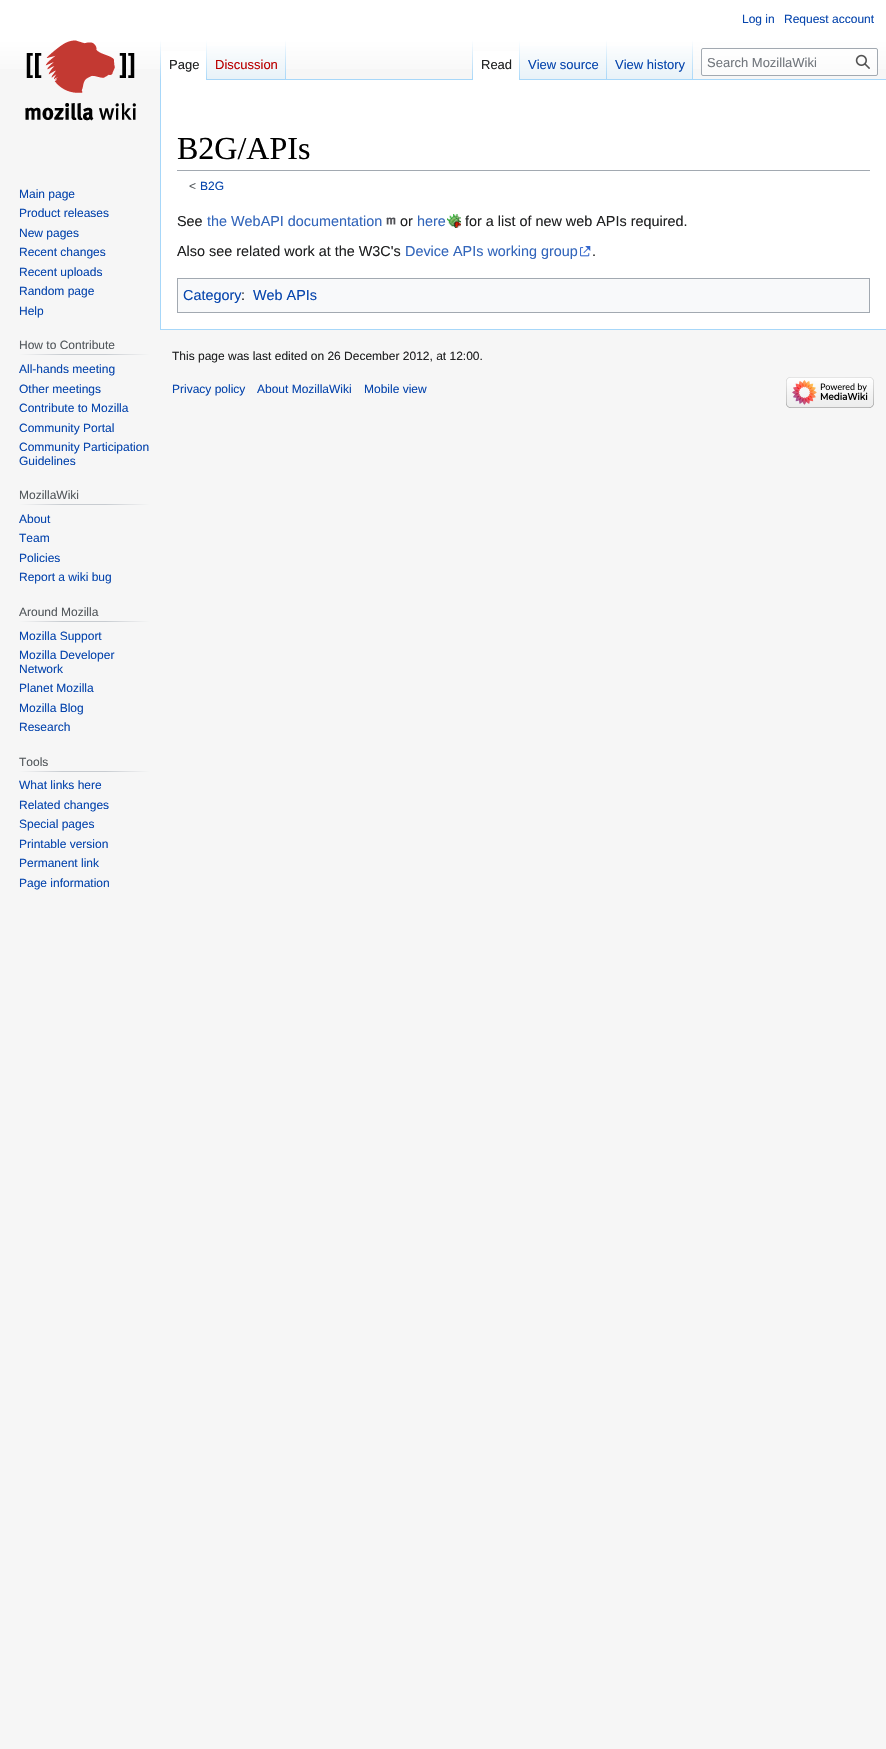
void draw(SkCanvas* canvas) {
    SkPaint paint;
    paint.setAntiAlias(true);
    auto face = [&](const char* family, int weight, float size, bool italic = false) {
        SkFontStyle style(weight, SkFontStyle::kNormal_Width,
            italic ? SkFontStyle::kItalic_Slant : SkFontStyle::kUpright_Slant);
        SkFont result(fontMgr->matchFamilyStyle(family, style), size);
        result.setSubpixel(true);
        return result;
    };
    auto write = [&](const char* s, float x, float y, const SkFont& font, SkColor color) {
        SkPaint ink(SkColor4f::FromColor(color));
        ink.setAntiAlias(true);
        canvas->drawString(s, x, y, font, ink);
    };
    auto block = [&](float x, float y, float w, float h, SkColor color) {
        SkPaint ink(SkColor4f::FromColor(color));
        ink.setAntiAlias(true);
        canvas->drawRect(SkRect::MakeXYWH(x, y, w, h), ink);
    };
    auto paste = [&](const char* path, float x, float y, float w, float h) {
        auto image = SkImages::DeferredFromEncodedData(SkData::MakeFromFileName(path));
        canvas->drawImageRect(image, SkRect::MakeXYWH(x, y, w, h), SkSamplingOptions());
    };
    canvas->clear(SkColorSetRGB(246, 246, 246));
    {
        const SkColor colors[] = {SK_ColorWHITE, SkColorSetRGB(246, 246, 246)};
        const float stops[] = {0.5f, 1};
        const SkPoint ends[] = {{443, 0}, {443, 80}};
        paint.setShader(SkGradientShader::MakeLinear(ends, colors, stops, 2, SkTileMode::kClamp));
        paint.setAlpha(255);
    }
    canvas->drawRect(SkRect::MakeXYWH(0, 0, 886, 69), paint);
    auto kFont1 = face("Liberation Sans", 400, 12);
    write("Log in", 742, 23, kFont1, SkColorSetRGB(6, 69, 173));
    write("Request account", 784, 23, kFont1, SkColorSetRGB(6, 69, 173));
    block(160, 329, 726, 1, SkColorSetRGB(167, 215, 249));
    block(160, 79, 1, 251, SkColorSetRGB(167, 215, 249));
    {
        const SkColor colors[] = {SkColorSetARGB(0, 167, 215, 249), SkColorSetRGB(167, 215, 249)};
        const float stops[] = {0, 1};
        const SkPoint ends[] = {{161, 40}, {161, 80}};
        paint.setShader(SkGradientShader::MakeLinear(ends, colors, stops, 2, SkTileMode::kClamp));
        paint.setAlpha(255);
    }
    canvas->drawRect(SkRect::MakeXYWH(160, 40, 1, 40), paint);
    block(161, 51, 45, 29, SK_ColorWHITE);
    {
        const SkColor colors[] = {SK_ColorWHITE, SkColorSetRGB(167, 215, 249)};
        const float stops[] = {0, 1};
        const SkPoint ends[] = {{207, 40}, {207, 80}};
        paint.setShader(SkGradientShader::MakeLinear(ends, colors, stops, 2, SkTileMode::kClamp));
        paint.setAlpha(255);
    }
    canvas->drawRect(SkRect::MakeXYWH(206, 40, 1, 40), paint);
    auto kFont2 = face("Liberation Sans", 400, 13);
    write("Page", 169, 69, kFont2, SkColorSetRGB(32, 33, 34));
    {
        const SkColor colors[] = {SkColorSetRGB(119, 193, 246), SkColorSetRGB(232, 242, 248), SK_ColorWHITE};
        const float stops[] = {0, 0.03f, 1};
        const SkPoint ends[] = {{247, 80}, {247, 40}};
        paint.setShader(SkGradientShader::MakeLinear(ends, colors, stops, 3, SkTileMode::kClamp));
        paint.setAlpha(255);
    }
    canvas->drawRect(SkRect::MakeXYWH(207, 46, 79, 34), paint);
    {
        const SkColor colors[] = {SkColorSetARGB(0, 167, 215, 249), SkColorSetRGB(167, 215, 249)};
        const float stops[] = {0, 1};
        const SkPoint ends[] = {{286, 40}, {286, 80}};
        paint.setShader(SkGradientShader::MakeLinear(ends, colors, stops, 2, SkTileMode::kClamp));
        paint.setAlpha(255);
    }
    canvas->drawRect(SkRect::MakeXYWH(285, 40, 1, 40), paint);
    write("Discussion", 215, 69, kFont2, SkColorSetRGB(186, 0, 0));
    block(286, 79, 600, 1, SkColorSetRGB(167, 215, 249));
    {
        const SkColor colors[] = {SkColorSetARGB(0, 167, 215, 249), SkColorSetRGB(167, 215, 249)};
        const float stops[] = {0, 1};
        const SkPoint ends[] = {{473, 40}, {473, 80}};
        paint.setShader(SkGradientShader::MakeLinear(ends, colors, stops, 2, SkTileMode::kClamp));
        paint.setAlpha(255);
    }
    canvas->drawRect(SkRect::MakeXYWH(472, 40, 1, 40), paint);
    block(473, 51, 46, 29, SK_ColorWHITE);
    {
        const SkColor colors[] = {SK_ColorWHITE, SkColorSetRGB(167, 215, 249)};
        const float stops[] = {0, 1};
        const SkPoint ends[] = {{520, 40}, {520, 80}};
        paint.setShader(SkGradientShader::MakeLinear(ends, colors, stops, 2, SkTileMode::kClamp));
        paint.setAlpha(255);
    }
    canvas->drawRect(SkRect::MakeXYWH(519, 40, 1, 40), paint);
    write("Read", 481, 69, kFont2, SkColorSetRGB(32, 33, 34));
    {
        const SkColor colors[] = {SkColorSetRGB(119, 193, 246), SkColorSetRGB(232, 242, 248), SK_ColorWHITE};
        const float stops[] = {0, 0.03f, 1};
        const SkPoint ends[] = {{564, 80}, {564, 40}};
        paint.setShader(SkGradientShader::MakeLinear(ends, colors, stops, 3, SkTileMode::kClamp));
        paint.setAlpha(255);
    }
    canvas->drawRect(SkRect::MakeXYWH(520, 46, 87, 33), paint);
    {
        const SkColor colors[] = {SkColorSetARGB(0, 167, 215, 249), SkColorSetRGB(167, 215, 249)};
        const float stops[] = {0, 1};
        const SkPoint ends[] = {{607, 40}, {607, 80}};
        paint.setShader(SkGradientShader::MakeLinear(ends, colors, stops, 2, SkTileMode::kClamp));
        paint.setAlpha(255);
    }
    canvas->drawRect(SkRect::MakeXYWH(606, 40, 1, 40), paint);
    write("View source", 528, 69, kFont2, SkColorSetRGB(6, 69, 173));
    {
        const SkColor colors[] = {SkColorSetRGB(119, 193, 246), SkColorSetRGB(232, 242, 248), SK_ColorWHITE};
        const float stops[] = {0, 0.03f, 1};
        const SkPoint ends[] = {{650, 80}, {650, 40}};
        paint.setShader(SkGradientShader::MakeLinear(ends, colors, stops, 3, SkTileMode::kClamp));
        paint.setAlpha(255);
    }
    canvas->drawRect(SkRect::MakeXYWH(607, 46, 86, 33), paint);
    {
        const SkColor colors[] = {SkColorSetARGB(0, 167, 215, 249), SkColorSetRGB(167, 215, 249)};
        const float stops[] = {0, 1};
        const SkPoint ends[] = {{693, 40}, {693, 80}};
        paint.setShader(SkGradientShader::MakeLinear(ends, colors, stops, 2, SkTileMode::kClamp));
        paint.setAlpha(255);
    }
    canvas->drawRect(SkRect::MakeXYWH(692, 40, 1, 40), paint);
    write("View history", 615, 69, kFont2, SkColorSetRGB(6, 69, 173));
    paint.setShader(nullptr);
    paint.setColor(SkColorSetARGB(128, 255, 255, 255));
    canvas->drawRoundRect(SkRect::MakeXYWH(701.5f, 48.5f, 176, 27), 1.5f, 1.5f, paint);
    paint.setStyle(SkPaint::kStroke_Style);
    paint.setStrokeWidth(1);
    paint.setColor(SkColorSetRGB(162, 169, 177));
    canvas->drawRoundRect(SkRect::MakeXYWH(701.5f, 48.5f, 176, 27), 1.5f, 1.5f, paint);
    write("Search MozillaWiki", 707, 67, kFont2, SkColorSetRGB(114, 119, 125));
    paste("pic1.png", 855, 54, 15, 15);
    paste("pic2.png", 25, 40, 111, 81);
    write("Main page", 19, 198, kFont1, SkColorSetRGB(6, 69, 173));
    write("Product releases", 19, 217, kFont1, SkColorSetRGB(6, 69, 173));
    write("New pages", 19, 237, kFont1, SkColorSetRGB(6, 69, 173));
    write("Recent changes", 19, 256, kFont1, SkColorSetRGB(6, 69, 173));
    write("Recent uploads", 19, 276, kFont1, SkColorSetRGB(6, 69, 173));
    write("Random page", 19, 295, kFont1, SkColorSetRGB(6, 69, 173));
    write("Help", 19, 315, kFont1, SkColorSetRGB(6, 69, 173));
    paint.setStyle(SkPaint::kFill_Style);
    {
        const SkColor colors[] = {SkColorSetRGB(246, 246, 246), SkColorSetRGB(200, 204, 209), SkColorSetRGB(200, 204, 209), SkColorSetRGB(246, 246, 246)};
        const float stops[] = {0, 0.33f, 0.66f, 1};
        const SkPoint ends[] = {{19, 355}, {150, 355}};
        paint.setShader(SkGradientShader::MakeLinear(ends, colors, stops, 4, SkTileMode::kClamp));
        paint.setAlpha(255);
    }
    canvas->drawRect(SkRect::MakeXYWH(19, 354, 131, 1), paint);
    write("How to Contribute", 19, 349, kFont1, SkColorSetRGB(84, 89, 93));
    write("All-hands meeting", 19, 373, kFont1, SkColorSetRGB(6, 69, 173));
    write("Other meetings", 19, 393, kFont1, SkColorSetRGB(6, 69, 173));
    write("Contribute to Mozilla", 19, 412, kFont1, SkColorSetRGB(6, 69, 173));
    write("Community Portal", 19, 432, kFont1, SkColorSetRGB(6, 69, 173));
    write("Community Participation", 19, 451, kFont1, SkColorSetRGB(6, 69, 173));
    write("Guidelines", 19, 465, kFont1, SkColorSetRGB(6, 69, 173));
    {
        const SkColor colors[] = {SkColorSetRGB(246, 246, 246), SkColorSetRGB(200, 204, 209), SkColorSetRGB(200, 204, 209), SkColorSetRGB(246, 246, 246)};
        const float stops[] = {0, 0.33f, 0.66f, 1};
        const SkPoint ends[] = {{19, 505}, {150, 505}};
        paint.setShader(SkGradientShader::MakeLinear(ends, colors, stops, 4, SkTileMode::kClamp));
        paint.setAlpha(255);
    }
    canvas->drawRect(SkRect::MakeXYWH(19, 504, 131, 1), paint);
    write("MozillaWiki", 19, 499, kFont1, SkColorSetRGB(84, 89, 93));
    write("About", 19, 523, kFont1, SkColorSetRGB(6, 69, 173));
    write("Team", 19, 542, kFont1, SkColorSetRGB(6, 69, 173));
    write("Policies", 19, 562, kFont1, SkColorSetRGB(6, 69, 173));
    write("Report a wiki bug", 19, 581, kFont1, SkColorSetRGB(6, 69, 173));
    {
        const SkColor colors[] = {SkColorSetRGB(246, 246, 246), SkColorSetRGB(200, 204, 209), SkColorSetRGB(200, 204, 209), SkColorSetRGB(246, 246, 246)};
        const float stops[] = {0, 0.33f, 0.66f, 1};
        const SkPoint ends[] = {{19, 622}, {150, 622}};
        paint.setShader(SkGradientShader::MakeLinear(ends, colors, stops, 4, SkTileMode::kClamp));
        paint.setAlpha(255);
    }
    canvas->drawRect(SkRect::MakeXYWH(19, 621, 131, 1), paint);
    write("Around Mozilla", 19, 616, kFont1, SkColorSetRGB(84, 89, 93));
    write("Mozilla Support", 19, 640, kFont1, SkColorSetRGB(6, 69, 173));
    write("Mozilla Developer", 19, 659, kFont1, SkColorSetRGB(6, 69, 173));
    write("Network", 19, 673, kFont1, SkColorSetRGB(6, 69, 173));
    write("Planet Mozilla", 19, 692, kFont1, SkColorSetRGB(6, 69, 173));
    write("Mozilla Blog", 19, 712, kFont1, SkColorSetRGB(6, 69, 173));
    write("Research", 19, 731, kFont1, SkColorSetRGB(6, 69, 173));
    {
        const SkColor colors[] = {SkColorSetRGB(246, 246, 246), SkColorSetRGB(200, 204, 209), SkColorSetRGB(200, 204, 209), SkColorSetRGB(246, 246, 246)};
        const float stops[] = {0, 0.33f, 0.66f, 1};
        const SkPoint ends[] = {{19, 772}, {150, 772}};
        paint.setShader(SkGradientShader::MakeLinear(ends, colors, stops, 4, SkTileMode::kClamp));
        paint.setAlpha(255);
    }
    canvas->drawRect(SkRect::MakeXYWH(19, 771, 131, 1), paint);
    write("Tools", 19, 766, kFont1, SkColorSetRGB(84, 89, 93));
    write("What links here", 19, 789, kFont1, SkColorSetRGB(6, 69, 173));
    write("Related changes", 19, 809, kFont1, SkColorSetRGB(6, 69, 173));
    write("Special pages", 19, 828, kFont1, SkColorSetRGB(6, 69, 173));
    write("Printable version", 19, 848, kFont1, SkColorSetRGB(6, 69, 173));
    write("Permanent link", 19, 867, kFont1, SkColorSetRGB(6, 69, 173));
    write("Page information", 19, 887, kFont1, SkColorSetRGB(6, 69, 173));
    block(161, 80, 725, 249, SK_ColorWHITE);
    block(177, 170, 693, 1, SkColorSetRGB(162, 169, 177));
    auto kFont3 = face("Liberation Serif", 400, 32);
    write("B2G/APIs", 177, 159, kFont3, SK_ColorBLACK);
    write("<", 189, 190, kFont1, SkColorSetRGB(84, 89, 93));
    write("B2G", 200, 190, kFont1, SkColorSetRGB(6, 69, 173));
    auto kFont4 = face("Liberation Sans", 400, 14.4f);
    write("See", 177, 226, kFont4, SkColorSetRGB(32, 33, 34));
    write("the WebAPI documentation", 207, 226, kFont4, SkColorSetRGB(51, 102, 187));
    paste("pic3.png", 386, 217, 10, 8);
    write("or", 400, 226, kFont4, SkColorSetRGB(32, 33, 34));
    write("here", 417, 226, kFont4, SkColorSetRGB(51, 102, 187));
    paste("pic4.png", 447, 214, 14, 14);
    write("for a list of new web APIs required.", 465, 226, kFont4, SkColorSetRGB(32, 33, 34));
    write("Also see related work at the W3C's", 177, 256, kFont4, SkColorSetRGB(32, 33, 34));
    write("Device APIs working group", 405, 256, kFont4, SkColorSetRGB(51, 102, 187));
    paste("pic5.png", 580, 246, 11, 11);
    write(".", 592, 256, kFont4, SkColorSetRGB(32, 33, 34));
    paint.setShader(nullptr);
    paint.setColor(SkColorSetRGB(248, 249, 250));
    canvas->drawRect(SkRect::MakeXYWH(177.5f, 278.5f, 692, 34), paint);
    paint.setStyle(SkPaint::kStroke_Style);
    paint.setColor(SkColorSetRGB(162, 169, 177));
    canvas->drawRect(SkRect::MakeXYWH(177.5f, 278.5f, 692, 34), paint);
    write("Category", 183, 300, kFont4, SkColorSetRGB(6, 69, 173));
    write(":", 241, 300, kFont4, SkColorSetRGB(32, 33, 34));
    write("Web APIs", 253, 300, kFont4, SkColorSetRGB(6, 69, 173));
    write("This page was last edited on 26 December 2012, at 12:00.", 172, 360, kFont1, SkColorSetRGB(32, 33, 34));
    write("Privacy policy", 172, 393, kFont1, SkColorSetRGB(6, 69, 173));
    write("About MozillaWiki", 257, 393, kFont1, SkColorSetRGB(6, 69, 173));
    write("Mobile view", 364, 393, kFont1, SkColorSetRGB(6, 69, 173));
    paste("pic6.png", 786, 377, 88, 31);
}
